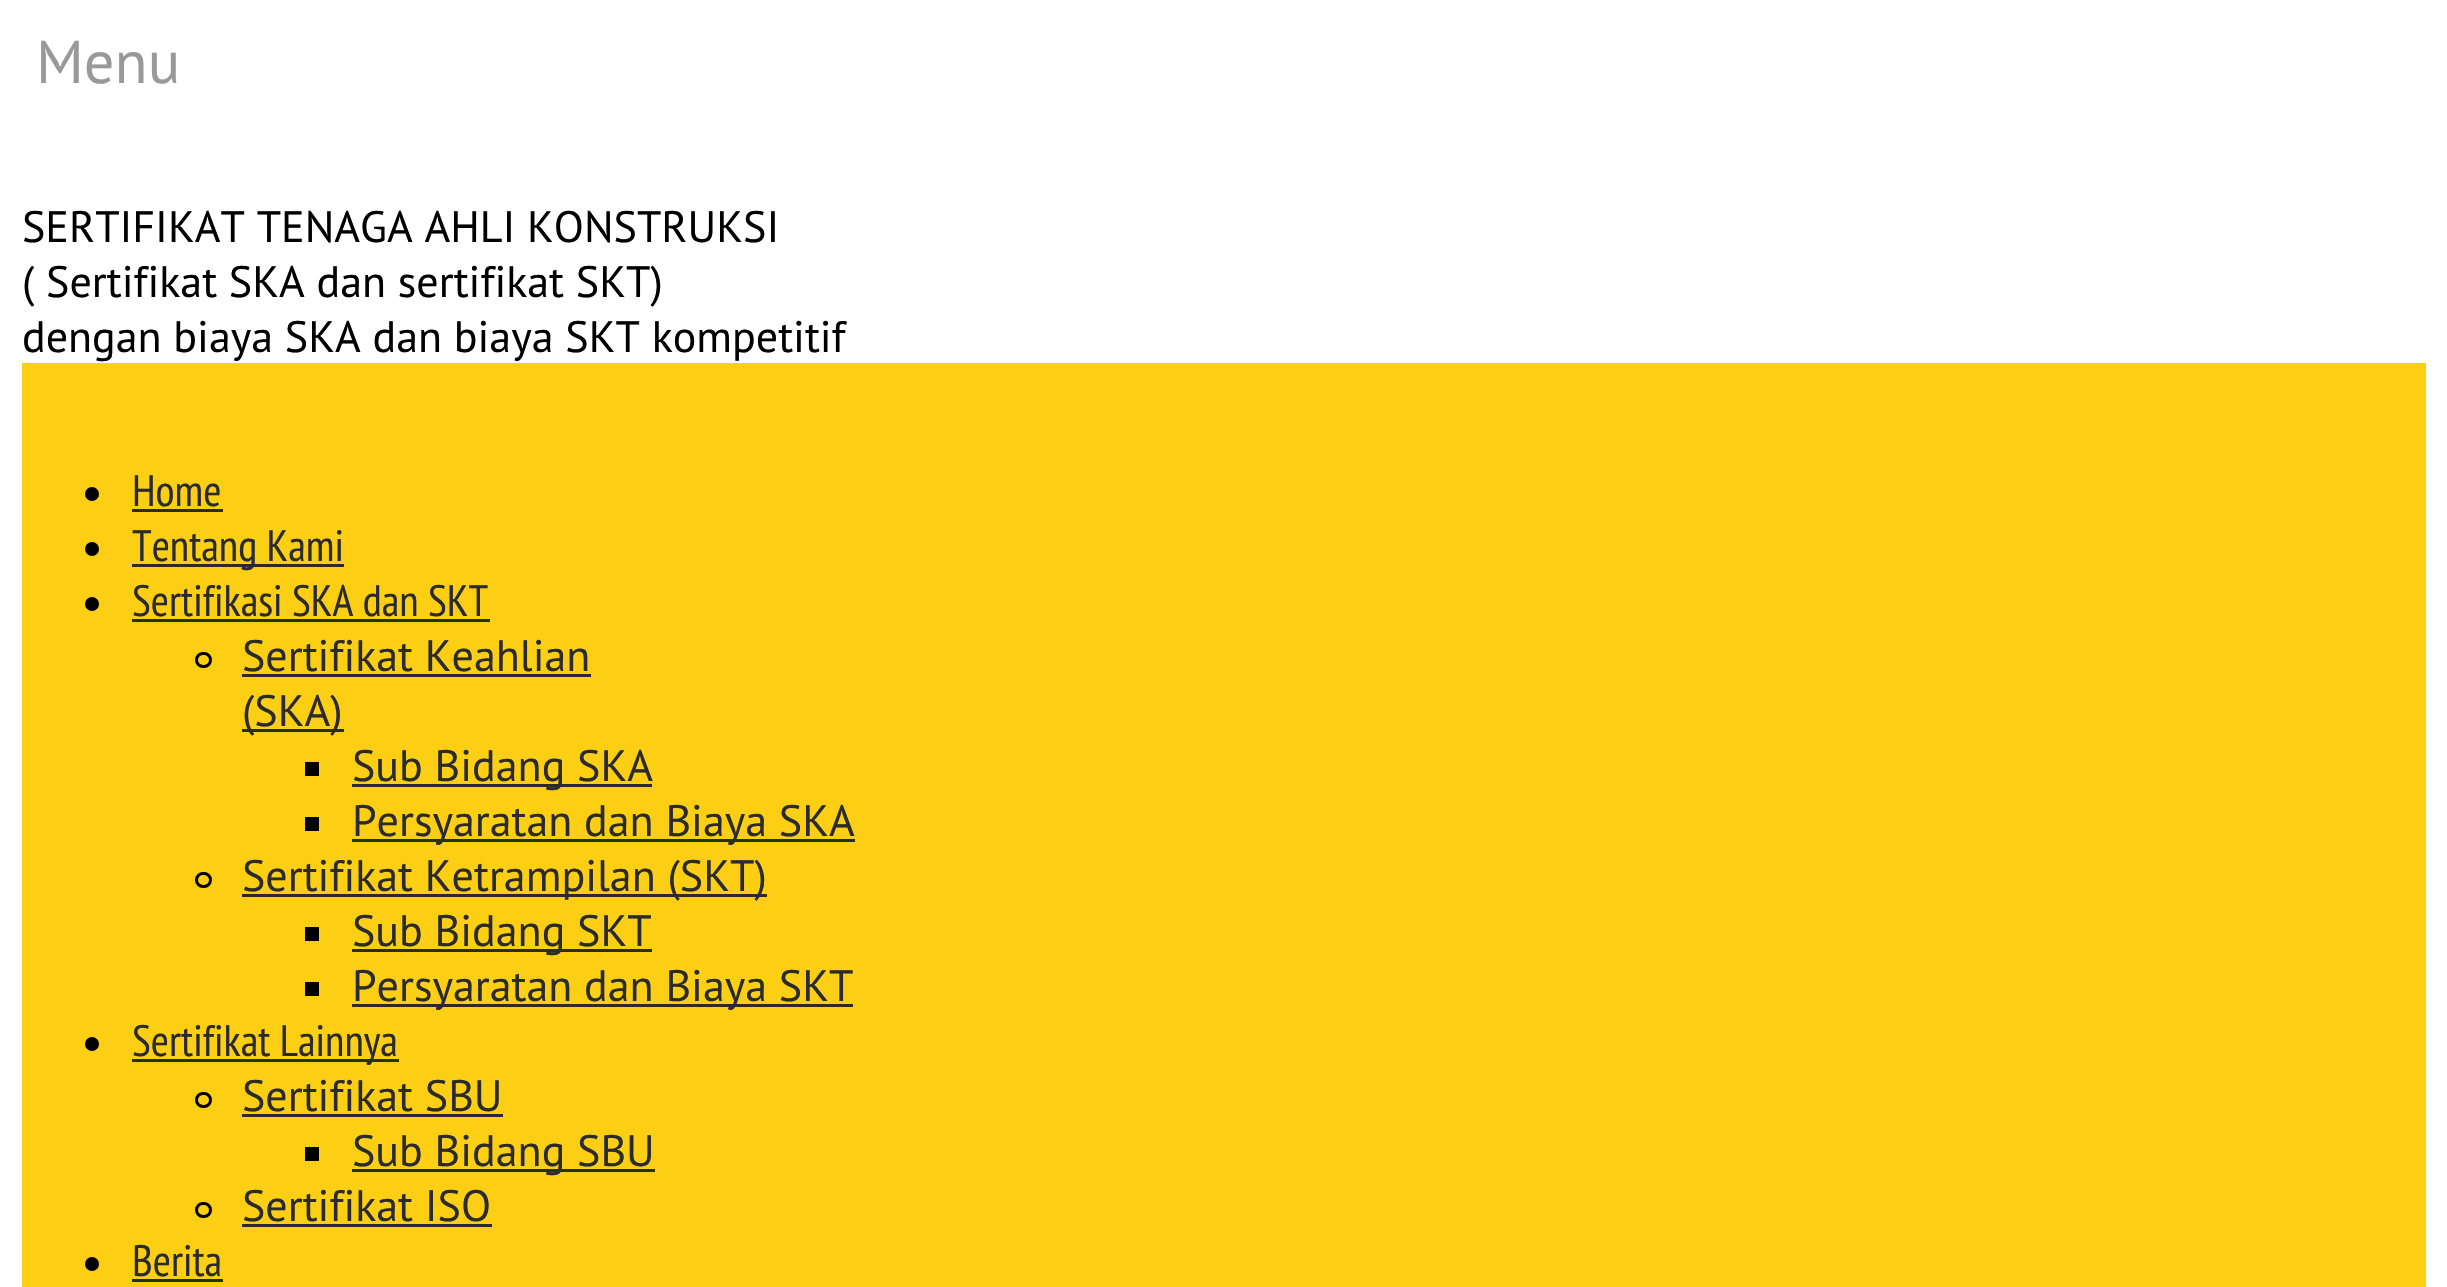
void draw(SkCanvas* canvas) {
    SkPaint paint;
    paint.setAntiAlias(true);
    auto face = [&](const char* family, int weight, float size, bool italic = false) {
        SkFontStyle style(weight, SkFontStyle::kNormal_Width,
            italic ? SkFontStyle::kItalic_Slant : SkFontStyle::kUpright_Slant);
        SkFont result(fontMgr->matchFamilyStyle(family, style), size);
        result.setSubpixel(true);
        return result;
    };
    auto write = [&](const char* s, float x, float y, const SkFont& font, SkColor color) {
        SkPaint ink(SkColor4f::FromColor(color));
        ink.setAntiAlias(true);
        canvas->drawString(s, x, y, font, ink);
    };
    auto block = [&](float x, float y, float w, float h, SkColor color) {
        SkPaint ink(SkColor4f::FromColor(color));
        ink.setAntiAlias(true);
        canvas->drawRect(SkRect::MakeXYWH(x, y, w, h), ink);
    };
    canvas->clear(SK_ColorWHITE);
    auto kFont1 = face("PT Sans", 400, 60.5f);
    write("Menu", 36, 83, kFont1, SkColorSetRGB(153, 153, 153));
    auto kFont2 = face("PT Sans", 400, 44);
    write("SERTIFIKAT TENAGA AHLI KONSTRUKSI", 22, 242, kFont2, SK_ColorBLACK);
    write("( Sertifikat SKA dan sertifikat SKT)", 22, 297, kFont2, SK_ColorBLACK);
    write("dengan biaya SKA dan biaya SKT kompetitif", 22, 352, kFont2, SK_ColorBLACK);
    block(22, 363, 2404, 924, SkColorSetRGB(252, 207, 20));
    paint.setColor(SK_ColorBLACK);
    canvas->drawCircle(92, 494, 7, paint);
    auto kFont3 = face("PT Sans Narrow", 400, 44);
    write("Home", 132, 506, kFont3, SkColorSetRGB(43, 43, 43));
    block(132, 509, 91, 3, SkColorSetRGB(43, 43, 43));
    canvas->drawCircle(92, 549, 7, paint);
    block(132, 564, 212, 3, SkColorSetRGB(43, 43, 43));
    write("Tentang Kami", 132, 561, kFont3, SkColorSetRGB(43, 43, 43));
    canvas->drawCircle(92, 604, 7, paint);
    write("Sertifikasi SKA dan SKT", 132, 616, kFont3, SkColorSetRGB(43, 43, 43));
    block(132, 619, 358, 3, SkColorSetRGB(43, 43, 43));
    paint.setStyle(SkPaint::kStroke_Style);
    paint.setStrokeWidth(3);
    canvas->drawRoundRect(SkRect::MakeXYWH(196.5f, 653.5f, 14, 13), 6.5f, 6.5f, paint);
    write("Sertifikat Keahlian", 242, 671, kFont2, SkColorSetRGB(43, 43, 43));
    block(242, 674, 349, 3, SkColorSetRGB(43, 43, 43));
    block(242, 729, 102, 3, SkColorSetRGB(43, 43, 43));
    write("(SKA)", 242, 726, kFont2, SkColorSetRGB(43, 43, 43));
    block(305, 762, 14, 14, SK_ColorBLACK);
    block(352, 784, 300, 3, SkColorSetRGB(43, 43, 43));
    write("Sub Bidang SKA", 352, 781, kFont2, SkColorSetRGB(43, 43, 43));
    block(305, 817, 14, 14, SK_ColorBLACK);
    block(352, 839, 503, 3, SkColorSetRGB(43, 43, 43));
    write("Persyaratan dan Biaya SKA", 352, 836, kFont2, SkColorSetRGB(43, 43, 43));
    canvas->drawRoundRect(SkRect::MakeXYWH(196.5f, 873.5f, 14, 13), 6.5f, 6.5f, paint);
    block(242, 894, 525, 3, SkColorSetRGB(43, 43, 43));
    write("Sertifikat Ketrampilan (SKT)", 242, 891, kFont2, SkColorSetRGB(43, 43, 43));
    block(305, 927, 14, 14, SK_ColorBLACK);
    block(352, 949, 300, 3, SkColorSetRGB(43, 43, 43));
    write("Sub Bidang SKT", 352, 946, kFont2, SkColorSetRGB(43, 43, 43));
    block(305, 982, 14, 14, SK_ColorBLACK);
    block(352, 1004, 501, 3, SkColorSetRGB(43, 43, 43));
    write("Persyaratan dan Biaya SKT", 352, 1001, kFont2, SkColorSetRGB(43, 43, 43));
    paint.setStyle(SkPaint::kFill_Style);
    canvas->drawCircle(92, 1044, 7, paint);
    block(132, 1059, 267, 3, SkColorSetRGB(43, 43, 43));
    write("Sertifikat Lainnya", 132, 1056, kFont3, SkColorSetRGB(43, 43, 43));
    paint.setStyle(SkPaint::kStroke_Style);
    canvas->drawRoundRect(SkRect::MakeXYWH(196.5f, 1093.5f, 14, 13), 6.5f, 6.5f, paint);
    write("Sertifikat SBU", 242, 1111, kFont2, SkColorSetRGB(43, 43, 43));
    block(242, 1114, 261, 3, SkColorSetRGB(43, 43, 43));
    block(305, 1147, 14, 14, SK_ColorBLACK);
    block(352, 1169, 303, 3, SkColorSetRGB(43, 43, 43));
    write("Sub Bidang SBU", 352, 1166, kFont2, SkColorSetRGB(43, 43, 43));
    canvas->drawRoundRect(SkRect::MakeXYWH(196.5f, 1203.5f, 14, 13), 6.5f, 6.5f, paint);
    write("Sertifikat ISO", 242, 1221, kFont2, SkColorSetRGB(43, 43, 43));
    block(242, 1224, 250, 3, SkColorSetRGB(43, 43, 43));
    paint.setStyle(SkPaint::kFill_Style);
    canvas->drawCircle(92, 1264, 7, paint);
    write("Berita", 132, 1276, kFont3, SkColorSetRGB(43, 43, 43));
    block(132, 1279, 91, 3, SkColorSetRGB(43, 43, 43));
}
